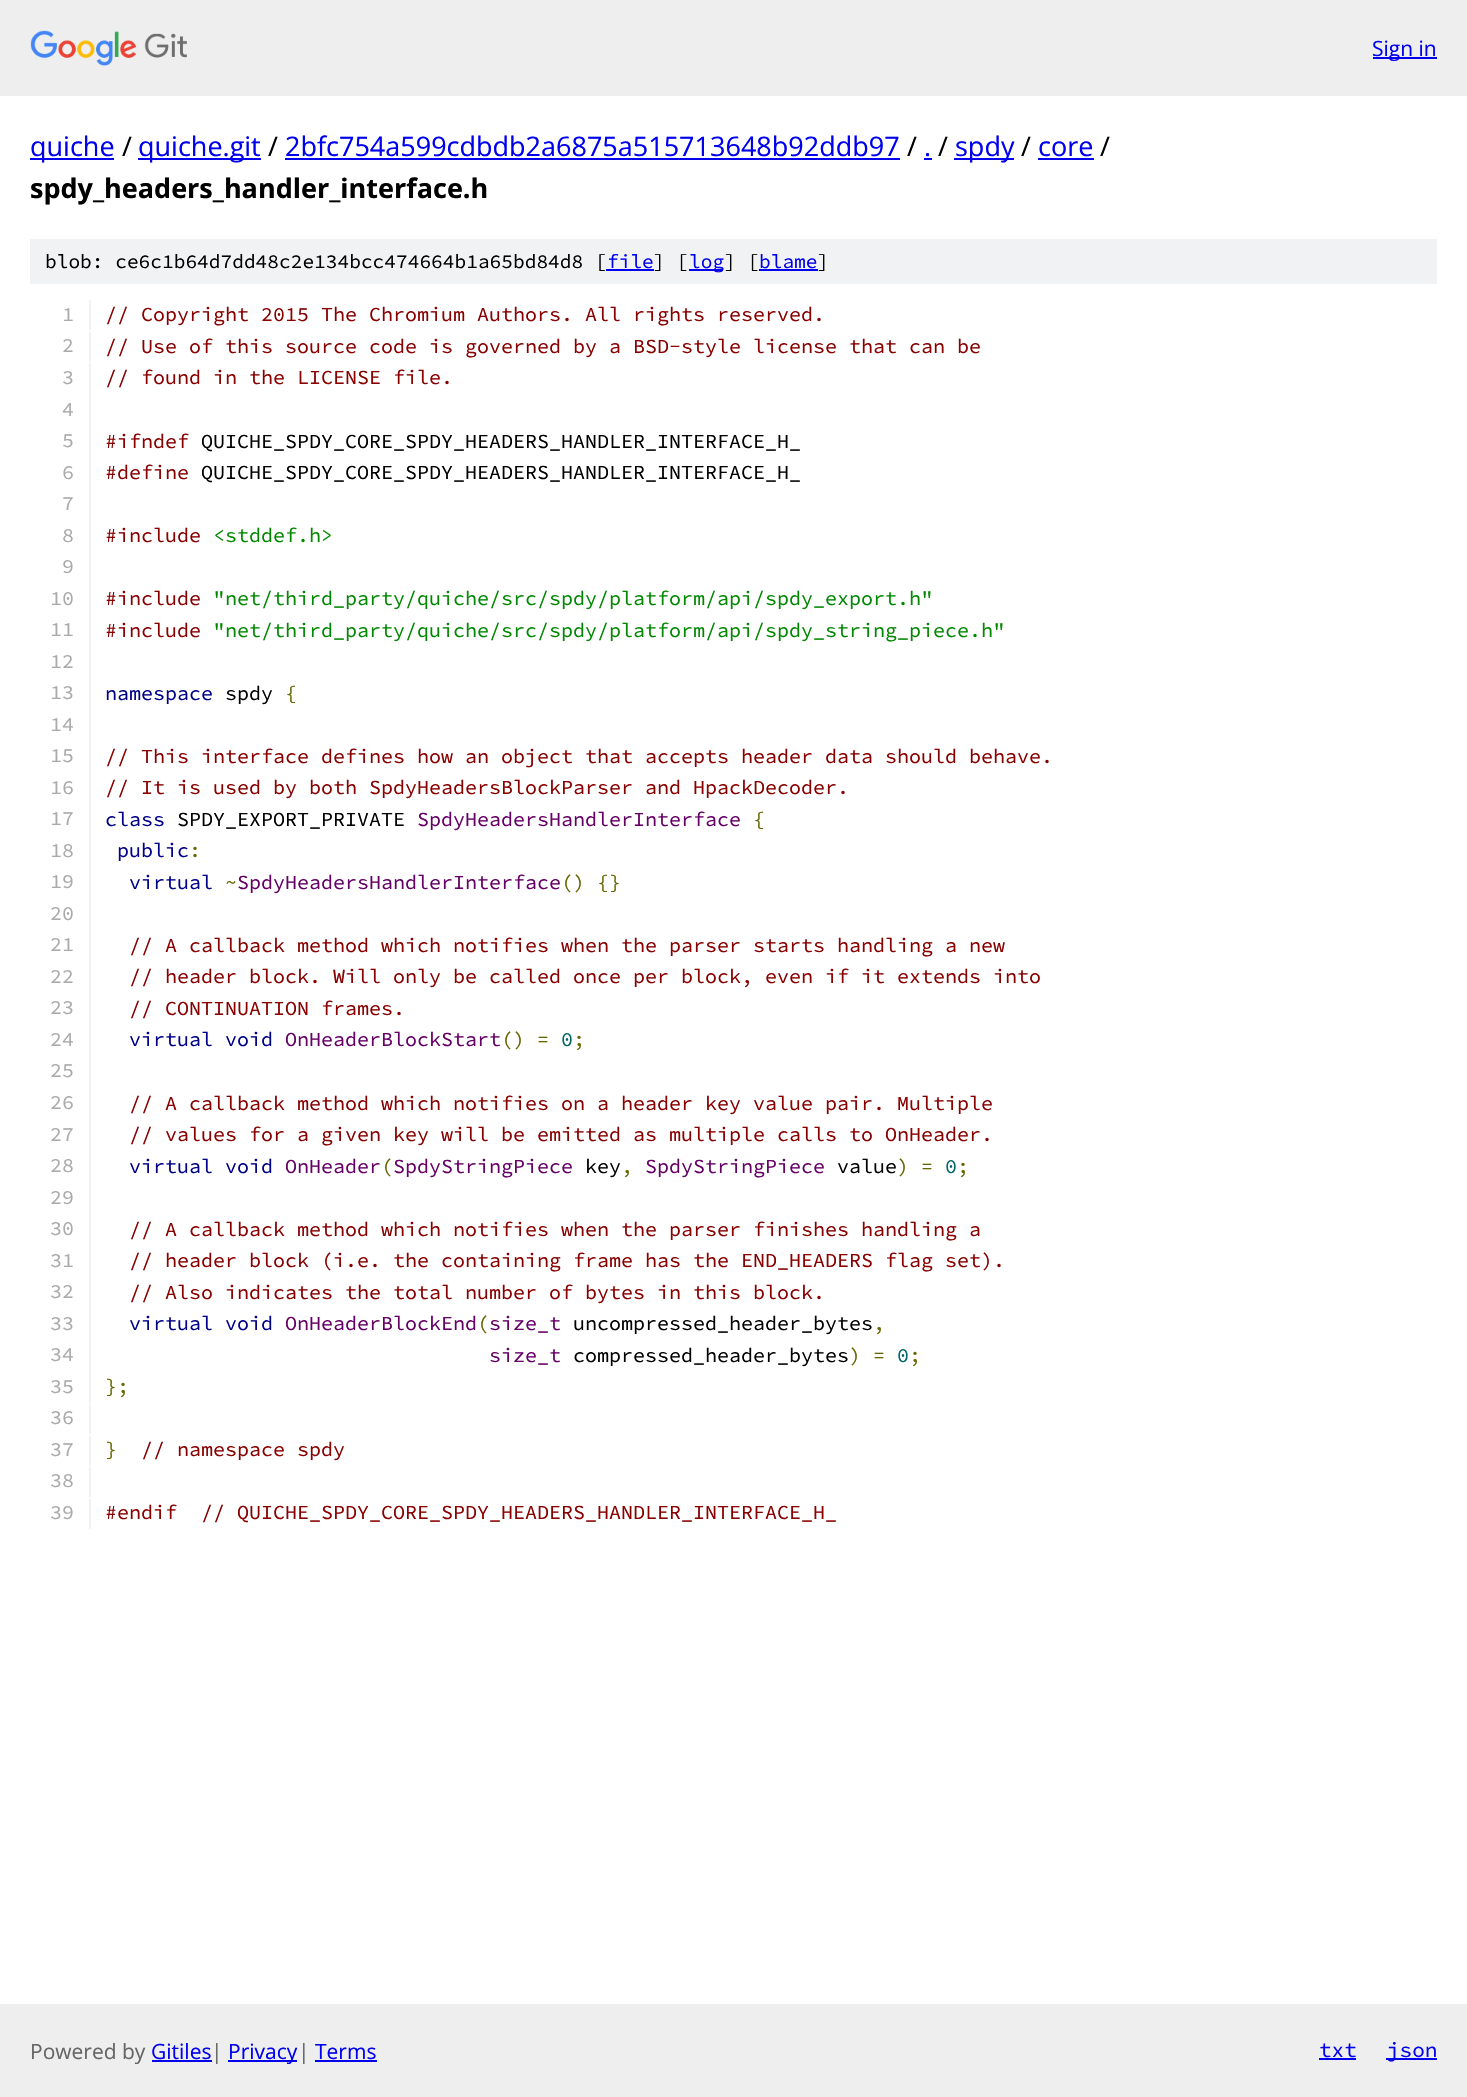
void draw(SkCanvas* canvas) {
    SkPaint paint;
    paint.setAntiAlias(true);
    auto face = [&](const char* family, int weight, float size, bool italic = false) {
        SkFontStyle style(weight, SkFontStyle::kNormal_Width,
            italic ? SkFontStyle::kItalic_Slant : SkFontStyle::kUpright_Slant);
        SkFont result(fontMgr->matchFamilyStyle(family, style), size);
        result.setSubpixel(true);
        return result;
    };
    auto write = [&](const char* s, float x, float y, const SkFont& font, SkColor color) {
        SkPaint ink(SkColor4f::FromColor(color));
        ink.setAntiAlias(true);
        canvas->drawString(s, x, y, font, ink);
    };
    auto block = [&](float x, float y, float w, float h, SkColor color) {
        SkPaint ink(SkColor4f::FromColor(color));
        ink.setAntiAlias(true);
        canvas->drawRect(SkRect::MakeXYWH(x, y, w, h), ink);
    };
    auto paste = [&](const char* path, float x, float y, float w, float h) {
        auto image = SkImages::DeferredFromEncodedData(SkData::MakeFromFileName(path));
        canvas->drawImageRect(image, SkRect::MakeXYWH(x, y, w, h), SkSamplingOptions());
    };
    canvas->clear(SK_ColorWHITE);
    block(0, 0, 1467, 96, SkColorSetRGB(238, 238, 238));
    paste("pic1.png", 30, 30, 157, 36);
    block(1373, 57, 64, 2, SkColorSetRGB(0, 0, 238));
    auto kFont1 = face("Open Sans", 400, 21);
    write("Sign in", 1372, 56, kFont1, SkColorSetRGB(0, 0, 238));
    block(30, 158, 84, 2, SkColorSetRGB(0, 0, 238));
    auto kFont2 = face("Open Sans", 400, 27);
    write("quiche", 30, 156, kFont2, SkColorSetRGB(0, 0, 238));
    write("/", 122, 156, kFont2, SK_ColorBLACK);
    block(138, 158, 123, 2, SkColorSetRGB(0, 0, 238));
    write("quiche.git", 138, 156, kFont2, SkColorSetRGB(0, 0, 238));
    write("/", 268, 156, kFont2, SK_ColorBLACK);
    write("2bfc754a599cdbdb2a6875a515713648b92ddb97", 285, 156, kFont2, SkColorSetRGB(0, 0, 238));
    block(285, 158, 615, 2, SkColorSetRGB(0, 0, 238));
    write("/", 907, 156, kFont2, SK_ColorBLACK);
    write(".", 924, 156, kFont2, SkColorSetRGB(0, 0, 238));
    block(924, 158, 8, 2, SkColorSetRGB(0, 0, 238));
    write("/", 938, 156, kFont2, SK_ColorBLACK);
    block(954, 158, 60, 2, SkColorSetRGB(0, 0, 238));
    write("spdy", 955, 156, kFont2, SkColorSetRGB(0, 0, 238));
    write("/", 1021, 156, kFont2, SK_ColorBLACK);
    write("core", 1038, 156, kFont2, SkColorSetRGB(0, 0, 238));
    block(1038, 158, 56, 2, SkColorSetRGB(0, 0, 238));
    write("/", 1100, 156, kFont2, SK_ColorBLACK);
    auto kFont3 = face("Open Sans", 700, 27);
    write("spdy_headers_handler_interface.h", 30, 198, kFont3, SK_ColorBLACK);
    block(30, 239, 1407, 45, SkColorSetRGB(241, 242, 243));
    auto kFont4 = face("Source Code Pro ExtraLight", 200, 19.5f);
    write("blob: ce6c1b64d7dd48c2e134bcc474664b1a65bd84d8 [", 45, 268, kFont4, SK_ColorBLACK);
    write("file", 607, 268, kFont4, SkColorSetRGB(0, 0, 238));
    block(606, 269, 48, 2, SkColorSetRGB(0, 0, 238));
    write("] [", 653, 268, kFont4, SK_ColorBLACK);
    block(689, 269, 34, 2, SkColorSetRGB(0, 0, 238));
    write("log", 689, 268, kFont4, SkColorSetRGB(0, 0, 238));
    write("] [", 724, 268, kFont4, SK_ColorBLACK);
    write("blame", 759, 268, kFont4, SkColorSetRGB(0, 0, 238));
    block(759, 269, 59, 2, SkColorSetRGB(0, 0, 238));
    write("]", 817, 268, kFont4, SK_ColorBLACK);
    block(89, 300, 2, 30, SkColorSetRGB(241, 242, 243));
    auto kFont5 = face("Source Code Pro ExtraLight", 200, 20);
    write("1", 62, 321, kFont5, SkColorSetRGB(170, 170, 170));
    write("// Copyright 2015 The Chromium Authors. All rights reserved.", 105, 321, kFont5, SkColorSetRGB(136, 0, 0));
    block(89, 332, 2, 30, SkColorSetRGB(241, 242, 243));
    write("2", 62, 352, kFont5, SkColorSetRGB(170, 170, 170));
    write("// Use of this source code is governed by a BSD-style license that can be", 105, 353, kFont5, SkColorSetRGB(136, 0, 0));
    block(89, 363, 2, 1040, SkColorSetRGB(241, 242, 243));
    write("3", 62, 384, kFont5, SkColorSetRGB(170, 170, 170));
    write("// found in the LICENSE file.", 105, 384, kFont5, SkColorSetRGB(136, 0, 0));
    write("4", 62, 416, kFont5, SkColorSetRGB(170, 170, 170));
    write("5", 62, 447, kFont5, SkColorSetRGB(170, 170, 170));
    write("#ifndef", 105, 448, kFont5, SkColorSetRGB(136, 0, 0));
    write("QUICHE_SPDY_CORE_SPDY_HEADERS_HANDLER_INTERFACE_H_", 201, 448, kFont5, SK_ColorBLACK);
    write("6", 62, 479, kFont5, SkColorSetRGB(170, 170, 170));
    write("#define", 105, 479, kFont5, SkColorSetRGB(136, 0, 0));
    write("QUICHE_SPDY_CORE_SPDY_HEADERS_HANDLER_INTERFACE_H_", 201, 479, kFont5, SK_ColorBLACK);
    write("7", 62, 510, kFont5, SkColorSetRGB(170, 170, 170));
    write("8", 62, 542, kFont5, SkColorSetRGB(170, 170, 170));
    write("#include", 105, 542, kFont5, SkColorSetRGB(136, 0, 0));
    write("<stddef.h>", 213, 542, kFont5, SkColorSetRGB(0, 136, 0));
    write("9", 62, 573, kFont5, SkColorSetRGB(170, 170, 170));
    write("10", 50, 605, kFont5, SkColorSetRGB(170, 170, 170));
    write("#include", 105, 605, kFont5, SkColorSetRGB(136, 0, 0));
    write("\"net/third_party/quiche/src/spdy/platform/api/spdy_export.h\"", 213, 605, kFont5, SkColorSetRGB(0, 136, 0));
    write("11", 50, 636, kFont5, SkColorSetRGB(170, 170, 170));
    write("#include", 105, 637, kFont5, SkColorSetRGB(136, 0, 0));
    write("\"net/third_party/quiche/src/spdy/platform/api/spdy_string_piece.h\"", 213, 637, kFont5, SkColorSetRGB(0, 136, 0));
    write("12", 50, 668, kFont5, SkColorSetRGB(170, 170, 170));
    write("13", 50, 699, kFont5, SkColorSetRGB(170, 170, 170));
    write("namespace", 105, 700, kFont5, SkColorSetRGB(0, 0, 136));
    write("spdy", 225, 700, kFont5, SK_ColorBLACK);
    write("{", 285, 700, kFont5, SkColorSetRGB(102, 102, 0));
    write("14", 50, 731, kFont5, SkColorSetRGB(170, 170, 170));
    write("15", 50, 762, kFont5, SkColorSetRGB(170, 170, 170));
    write("// This interface defines how an object that accepts header data should behave.", 105, 763, kFont5, SkColorSetRGB(136, 0, 0));
    write("16", 50, 794, kFont5, SkColorSetRGB(170, 170, 170));
    write("// It is used by both SpdyHeadersBlockParser and HpackDecoder.", 105, 794, kFont5, SkColorSetRGB(136, 0, 0));
    write("17", 50, 825, kFont5, SkColorSetRGB(170, 170, 170));
    write("class", 105, 826, kFont5, SkColorSetRGB(0, 0, 136));
    write("SPDY_EXPORT_PRIVATE", 177, 826, kFont5, SK_ColorBLACK);
    write("SpdyHeadersHandlerInterface", 417, 826, kFont5, SkColorSetRGB(102, 0, 102));
    write("{", 753, 826, kFont5, SkColorSetRGB(102, 102, 0));
    write("18", 50, 857, kFont5, SkColorSetRGB(170, 170, 170));
    write("public", 117, 857, kFont5, SkColorSetRGB(0, 0, 136));
    write(":", 189, 857, kFont5, SkColorSetRGB(102, 102, 0));
    write("19", 50, 888, kFont5, SkColorSetRGB(170, 170, 170));
    write("virtual", 129, 889, kFont5, SkColorSetRGB(0, 0, 136));
    write("~", 225, 889, kFont5, SkColorSetRGB(102, 102, 0));
    write("SpdyHeadersHandlerInterface", 237, 889, kFont5, SkColorSetRGB(102, 0, 102));
    write("() {}", 561, 889, kFont5, SkColorSetRGB(102, 102, 0));
    write("20", 50, 920, kFont5, SkColorSetRGB(170, 170, 170));
    write("21", 50, 951, kFont5, SkColorSetRGB(170, 170, 170));
    write("// A callback method which notifies when the parser starts handling a new", 129, 952, kFont5, SkColorSetRGB(136, 0, 0));
    write("22", 50, 983, kFont5, SkColorSetRGB(170, 170, 170));
    write("// header block. Will only be called once per block, even if it extends into", 129, 983, kFont5, SkColorSetRGB(136, 0, 0));
    write("23", 50, 1014, kFont5, SkColorSetRGB(170, 170, 170));
    write("// CONTINUATION frames.", 129, 1015, kFont5, SkColorSetRGB(136, 0, 0));
    write("24", 50, 1046, kFont5, SkColorSetRGB(170, 170, 170));
    write("virtual void", 129, 1046, kFont5, SkColorSetRGB(0, 0, 136));
    write("OnHeaderBlockStart", 285, 1046, kFont5, SkColorSetRGB(102, 0, 102));
    write("() =", 501, 1046, kFont5, SkColorSetRGB(102, 102, 0));
    write("0", 561, 1046, kFont5, SkColorSetRGB(0, 102, 102));
    write(";", 573, 1046, kFont5, SkColorSetRGB(102, 102, 0));
    write("25", 50, 1077, kFont5, SkColorSetRGB(170, 170, 170));
    write("26", 50, 1109, kFont5, SkColorSetRGB(170, 170, 170));
    write("// A callback method which notifies on a header key value pair. Multiple", 129, 1110, kFont5, SkColorSetRGB(136, 0, 0));
    write("27", 50, 1141, kFont5, SkColorSetRGB(170, 170, 170));
    write("// values for a given key will be emitted as multiple calls to OnHeader.", 129, 1141, kFont5, SkColorSetRGB(136, 0, 0));
    write("28", 50, 1172, kFont5, SkColorSetRGB(170, 170, 170));
    write("virtual void", 129, 1173, kFont5, SkColorSetRGB(0, 0, 136));
    write("OnHeader SpdyStringPiece", 285, 1173, kFont5, SkColorSetRGB(102, 0, 102));
    write("(", 381, 1173, kFont5, SkColorSetRGB(102, 102, 0));
    write("key", 585, 1173, kFont5, SK_ColorBLACK);
    write(",", 621, 1173, kFont5, SkColorSetRGB(102, 102, 0));
    write("SpdyStringPiece", 645, 1173, kFont5, SkColorSetRGB(102, 0, 102));
    write("value", 837, 1173, kFont5, SK_ColorBLACK);
    write(") =", 897, 1173, kFont5, SkColorSetRGB(102, 102, 0));
    write("0", 945, 1173, kFont5, SkColorSetRGB(0, 102, 102));
    write(";", 957, 1173, kFont5, SkColorSetRGB(102, 102, 0));
    write("29", 50, 1204, kFont5, SkColorSetRGB(170, 170, 170));
    write("30", 50, 1235, kFont5, SkColorSetRGB(170, 170, 170));
    write("// A callback method which notifies when the parser finishes handling a", 129, 1236, kFont5, SkColorSetRGB(136, 0, 0));
    write("31", 50, 1267, kFont5, SkColorSetRGB(170, 170, 170));
    write("// header block (i.e. the containing frame has the END_HEADERS flag set).", 129, 1267, kFont5, SkColorSetRGB(136, 0, 0));
    write("32", 50, 1298, kFont5, SkColorSetRGB(170, 170, 170));
    write("// Also indicates the total number of bytes in this block.", 129, 1299, kFont5, SkColorSetRGB(136, 0, 0));
    write("33", 50, 1330, kFont5, SkColorSetRGB(170, 170, 170));
    write("virtual void", 129, 1330, kFont5, SkColorSetRGB(0, 0, 136));
    write("OnHeaderBlockEnd size_t", 285, 1330, kFont5, SkColorSetRGB(102, 0, 102));
    write("(", 477, 1330, kFont5, SkColorSetRGB(102, 102, 0));
    write("uncompressed_header_bytes", 573, 1330, kFont5, SK_ColorBLACK);
    write(",", 873, 1330, kFont5, SkColorSetRGB(102, 102, 0));
    write("34", 50, 1361, kFont5, SkColorSetRGB(170, 170, 170));
    write("size_t", 489, 1362, kFont5, SkColorSetRGB(102, 0, 102));
    write("compressed_header_bytes", 573, 1362, kFont5, SK_ColorBLACK);
    write(") =", 849, 1362, kFont5, SkColorSetRGB(102, 102, 0));
    write("0", 897, 1362, kFont5, SkColorSetRGB(0, 102, 102));
    write(";", 909, 1362, kFont5, SkColorSetRGB(102, 102, 0));
    write("35", 50, 1393, kFont5, SkColorSetRGB(170, 170, 170));
    write("};", 105, 1393, kFont5, SkColorSetRGB(102, 102, 0));
    block(89, 1404, 2, 30, SkColorSetRGB(241, 242, 243));
    write("36", 50, 1424, kFont5, SkColorSetRGB(170, 170, 170));
    block(89, 1436, 2, 30, SkColorSetRGB(241, 242, 243));
    write("37", 50, 1456, kFont5, SkColorSetRGB(170, 170, 170));
    write("}", 105, 1456, kFont5, SkColorSetRGB(102, 102, 0));
    write("// namespace spdy", 141, 1456, kFont5, SkColorSetRGB(136, 0, 0));
    block(89, 1467, 2, 30, SkColorSetRGB(241, 242, 243));
    write("38", 50, 1487, kFont5, SkColorSetRGB(170, 170, 170));
    block(89, 1499, 2, 30, SkColorSetRGB(241, 242, 243));
    write("39", 50, 1519, kFont5, SkColorSetRGB(170, 170, 170));
    write("#endif", 105, 1519, kFont5, SkColorSetRGB(136, 0, 0));
    write("// QUICHE_SPDY_CORE_SPDY_HEADERS_HANDLER_INTERFACE_H_", 201, 1519, kFont5, SkColorSetRGB(136, 0, 0));
    block(0, 2004, 1467, 93, SkColorSetRGB(238, 238, 238));
    write("Powered by", 30, 2059, kFont1, SkColorSetRGB(102, 102, 102));
    write("Gitiles", 151, 2059, kFont1, SkColorSetRGB(0, 0, 238));
    block(152, 2060, 60, 2, SkColorSetRGB(0, 0, 238));
    write("|", 211, 2059, kFont1, SkColorSetRGB(102, 102, 102));
    block(228, 2060, 69, 2, SkColorSetRGB(0, 0, 238));
    write("Privacy", 228, 2059, kFont1, SkColorSetRGB(0, 0, 238));
    write("|", 298, 2059, kFont1, SkColorSetRGB(102, 102, 102));
    write("Terms", 315, 2059, kFont1, SkColorSetRGB(0, 0, 238));
    block(315, 2060, 62, 2, SkColorSetRGB(0, 0, 238));
    auto kFont6 = face("Source Code Pro ExtraLight", 200, 21);
    write("txt", 1319, 2057, kFont6, SkColorSetRGB(0, 0, 238));
    block(1319, 2058, 37, 2, SkColorSetRGB(0, 0, 238));
    block(1386, 2058, 51, 2, SkColorSetRGB(0, 0, 238));
    write("json", 1387, 2057, kFont6, SkColorSetRGB(0, 0, 238));
}
